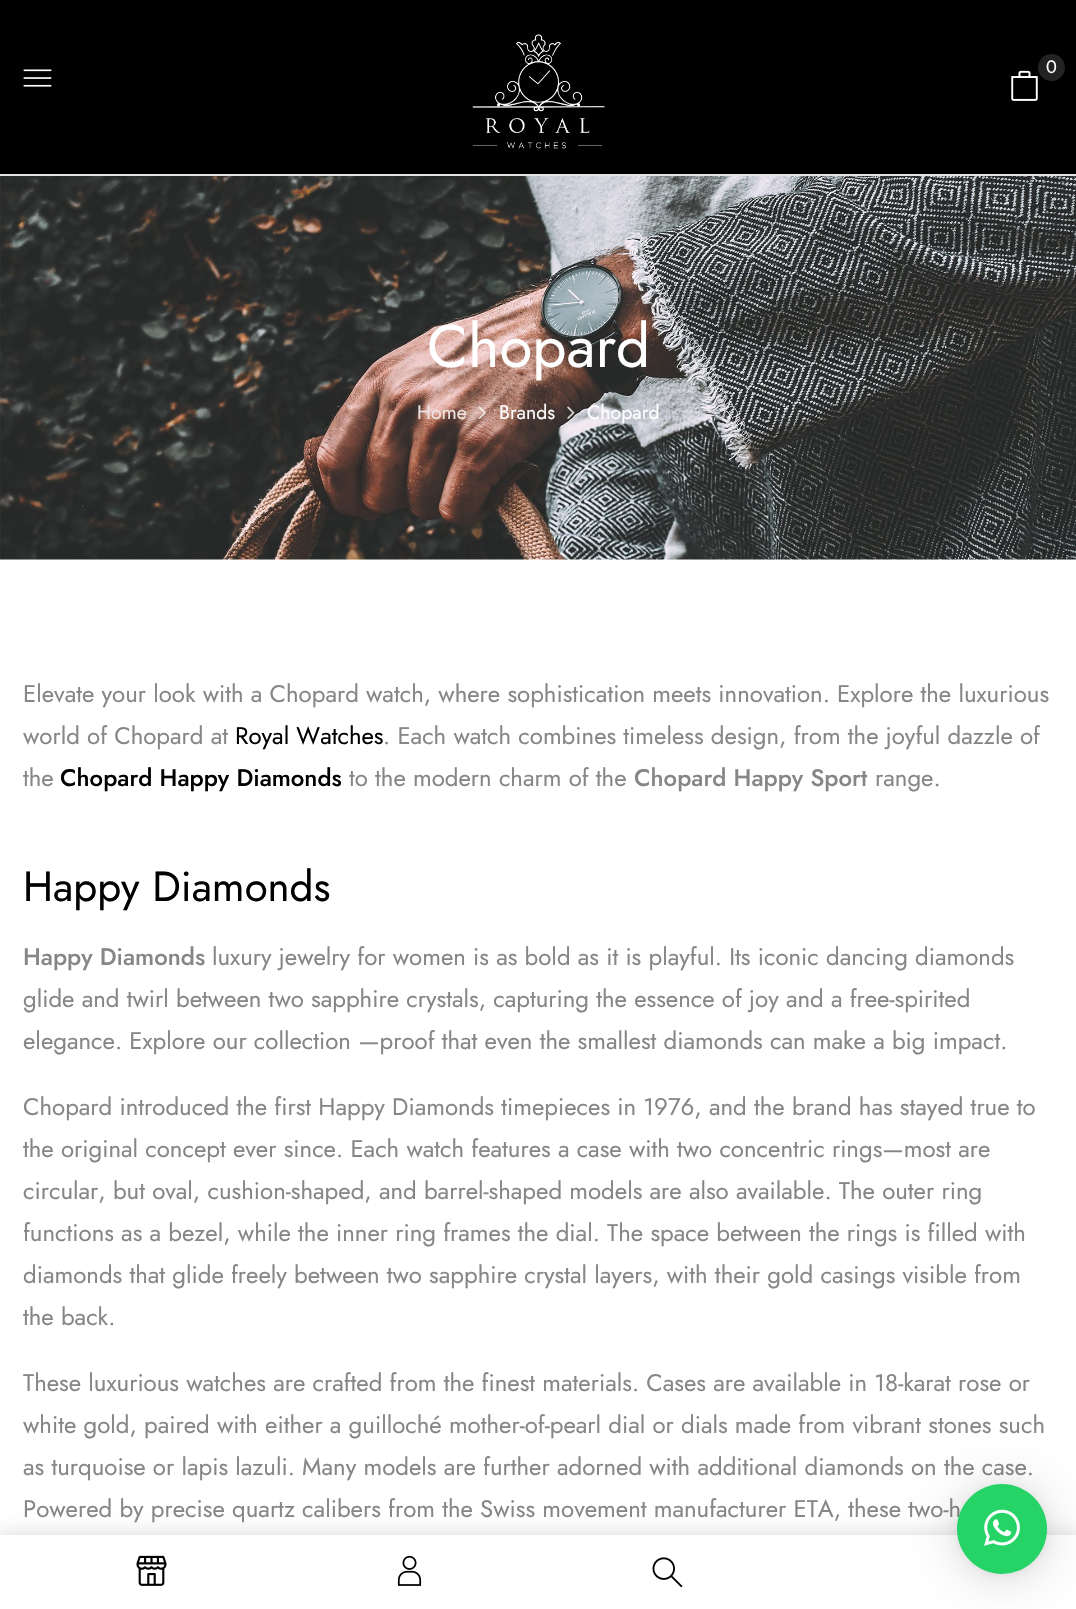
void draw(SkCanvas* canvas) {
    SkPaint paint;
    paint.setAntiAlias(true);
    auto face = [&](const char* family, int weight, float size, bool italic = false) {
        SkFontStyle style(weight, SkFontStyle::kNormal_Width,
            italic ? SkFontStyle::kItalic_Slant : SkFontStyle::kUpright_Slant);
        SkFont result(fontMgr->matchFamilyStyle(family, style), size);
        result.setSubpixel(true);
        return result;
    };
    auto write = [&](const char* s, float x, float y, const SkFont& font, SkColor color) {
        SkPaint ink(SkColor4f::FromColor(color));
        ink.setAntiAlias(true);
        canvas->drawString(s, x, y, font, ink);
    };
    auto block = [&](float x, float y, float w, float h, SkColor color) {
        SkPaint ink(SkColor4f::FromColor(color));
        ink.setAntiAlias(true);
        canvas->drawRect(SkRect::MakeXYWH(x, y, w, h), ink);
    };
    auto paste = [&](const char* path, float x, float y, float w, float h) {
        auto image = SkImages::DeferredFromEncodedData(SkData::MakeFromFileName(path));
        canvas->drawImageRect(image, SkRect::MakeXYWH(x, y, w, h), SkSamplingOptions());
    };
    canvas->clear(SK_ColorWHITE);
    block(0, 0, 1076, 174, SK_ColorBLACK);
    block(0, 174, 1076, 2, SkColorSetRGB(229, 229, 229));
    paste("pic1.png", 472, 34, 133, 115);
    paint.setColor(SkColorSetRGB(34, 34, 34));
    canvas->drawCircle(1051.5f, 67.5f, 13.5f, paint);
    auto kFont1 = face("Jost", 400, 18);
    write("0", 1046, 73, kFont1, SK_ColorWHITE);
    paste("pic2.png", 1011, 70, 27, 31);
    paste("pic3.png", 23, 69, 29, 18);
    paint.setColor(SkColorSetARGB(77, 144, 144, 144));
    paint.setMaskFilter(SkMaskFilter::MakeBlur(kNormal_SkBlurStyle, 9));
    canvas->drawRect(SkRect::MakeXYWH(-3, 1533, 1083, 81), paint);
    paint.setMaskFilter(nullptr);
    block(0, 1535, 1076, 74, SK_ColorWHITE);
    paste("pic4.png", 136, 1555, 31, 31);
    paste("pic5.png", 397, 1555, 25, 31);
    paste("pic6.png", 652, 1557, 31, 31);
    paste("pic7.png", 0, 176, 1076, 384);
    auto kFont2 = face("Jost", 400, 60);
    write("Chopard", 427, 367, kFont2, SK_ColorWHITE);
    auto kFont3 = face("Jost", 400, 19.5f);
    write("Home", 417, 419, kFont3, SkColorSetRGB(236, 227, 225));
    paste("pic8.png", 478, 406, 8, 13);
    write("Brands", 499, 419, kFont3, SK_ColorWHITE);
    paste("pic9.png", 567, 406, 8, 13);
    write("Chopard", 587, 419, kFont3, SK_ColorWHITE);
    auto kFont4 = face("Jost", 400, 24);
    write("Elevate your look with a Chopard watch, where sophistication meets innovation. Explore the luxurious", 23, 702, kFont4, SkColorSetRGB(134, 134, 134));
    write("world of Chopard at", 23, 744, kFont4, SkColorSetRGB(134, 134, 134));
    write("Royal Watches", 235, 744, kFont4, SK_ColorBLACK);
    write(". Each watch combines timeless design, from the joyful dazzle of", 383, 744, kFont4, SkColorSetRGB(134, 134, 134));
    write("the", 23, 786, kFont4, SkColorSetRGB(134, 134, 134));
    auto kFont5 = face("Jost", 500, 24);
    write("Chopard Happy Diamonds", 60, 786, kFont5, SK_ColorBLACK);
    write("to the modern charm of the", 349, 786, kFont4, SkColorSetRGB(134, 134, 134));
    write("Chopard Happy Sport", 634, 786, kFont5, SkColorSetRGB(134, 134, 134));
    write("range.", 875, 786, kFont4, SkColorSetRGB(134, 134, 134));
    auto kFont6 = face("Jost", 400, 42);
    write("Happy Diamonds", 23, 901, kFont6, SK_ColorBLACK);
    write("Happy Diamonds", 23, 965, kFont5, SkColorSetRGB(134, 134, 134));
    write("luxury jewelry for women is as bold as it is playful. Its iconic dancing diamonds", 212, 965, kFont4, SkColorSetRGB(134, 134, 134));
    write("glide and twirl between two sapphire crystals, capturing the essence of joy and a free-spirited", 23, 1007, kFont4, SkColorSetRGB(134, 134, 134));
    write("elegance. Explore our collection —proof that even the smallest diamonds can make a big impact.", 23, 1049, kFont4, SkColorSetRGB(134, 134, 134));
    write("Chopard introduced the first Happy Diamonds timepieces in 1976, and the brand has stayed true to", 23, 1115, kFont4, SkColorSetRGB(134, 134, 134));
    write("the original concept ever since. Each watch features a case with two concentric rings—most are", 23, 1157, kFont4, SkColorSetRGB(134, 134, 134));
    write("circular, but oval, cushion-shaped, and barrel-shaped models are also available. The outer ring", 23, 1199, kFont4, SkColorSetRGB(134, 134, 134));
    write("functions as a bezel, while the inner ring frames the dial. The space between the rings is filled with", 23, 1241, kFont4, SkColorSetRGB(134, 134, 134));
    write("diamonds that glide freely between two sapphire crystal layers, with their gold casings visible from", 23, 1283, kFont4, SkColorSetRGB(134, 134, 134));
    write("the back.", 23, 1325, kFont4, SkColorSetRGB(134, 134, 134));
    write("These luxurious watches are crafted from the finest materials. Cases are available in 18-karat rose or", 23, 1391, kFont4, SkColorSetRGB(134, 134, 134));
    write("white gold, paired with either a guilloché mother-of-pearl dial or dials made from vibrant stones such", 23, 1433, kFont4, SkColorSetRGB(134, 134, 134));
    write("as turquoise or lapis lazuli. Many models are further adorned with additional diamonds on the case.", 23, 1475, kFont4, SkColorSetRGB(134, 134, 134));
    write("Powered by precise quartz calibers from the Swiss movement manufacturer ETA, these two-h", 23, 1517, kFont4, SkColorSetRGB(134, 134, 134));
    paint.setColor(SkColorSetARGB(41, 0, 0, 0));
    paint.setMaskFilter(SkMaskFilter::MakeBlur(kNormal_SkBlurStyle, 24));
    canvas->drawRoundRect(SkRect::MakeXYWH(957, 1487, 90, 90), 45, 45, paint);
    paint.setMaskFilter(nullptr);
    paint.setColor(SkColorSetARGB(15, 0, 0, 0));
    paint.setMaskFilter(SkMaskFilter::MakeBlur(kNormal_SkBlurStyle, 4.5f));
    canvas->drawRoundRect(SkRect::MakeXYWH(957, 1485, 90, 90), 45, 45, paint);
    paint.setMaskFilter(nullptr);
    paint.setColor(SkColorSetRGB(37, 211, 102));
    canvas->drawCircle(1002, 1529, 45, paint);
    paste("pic10.png", 984, 1509, 36, 37);
}
